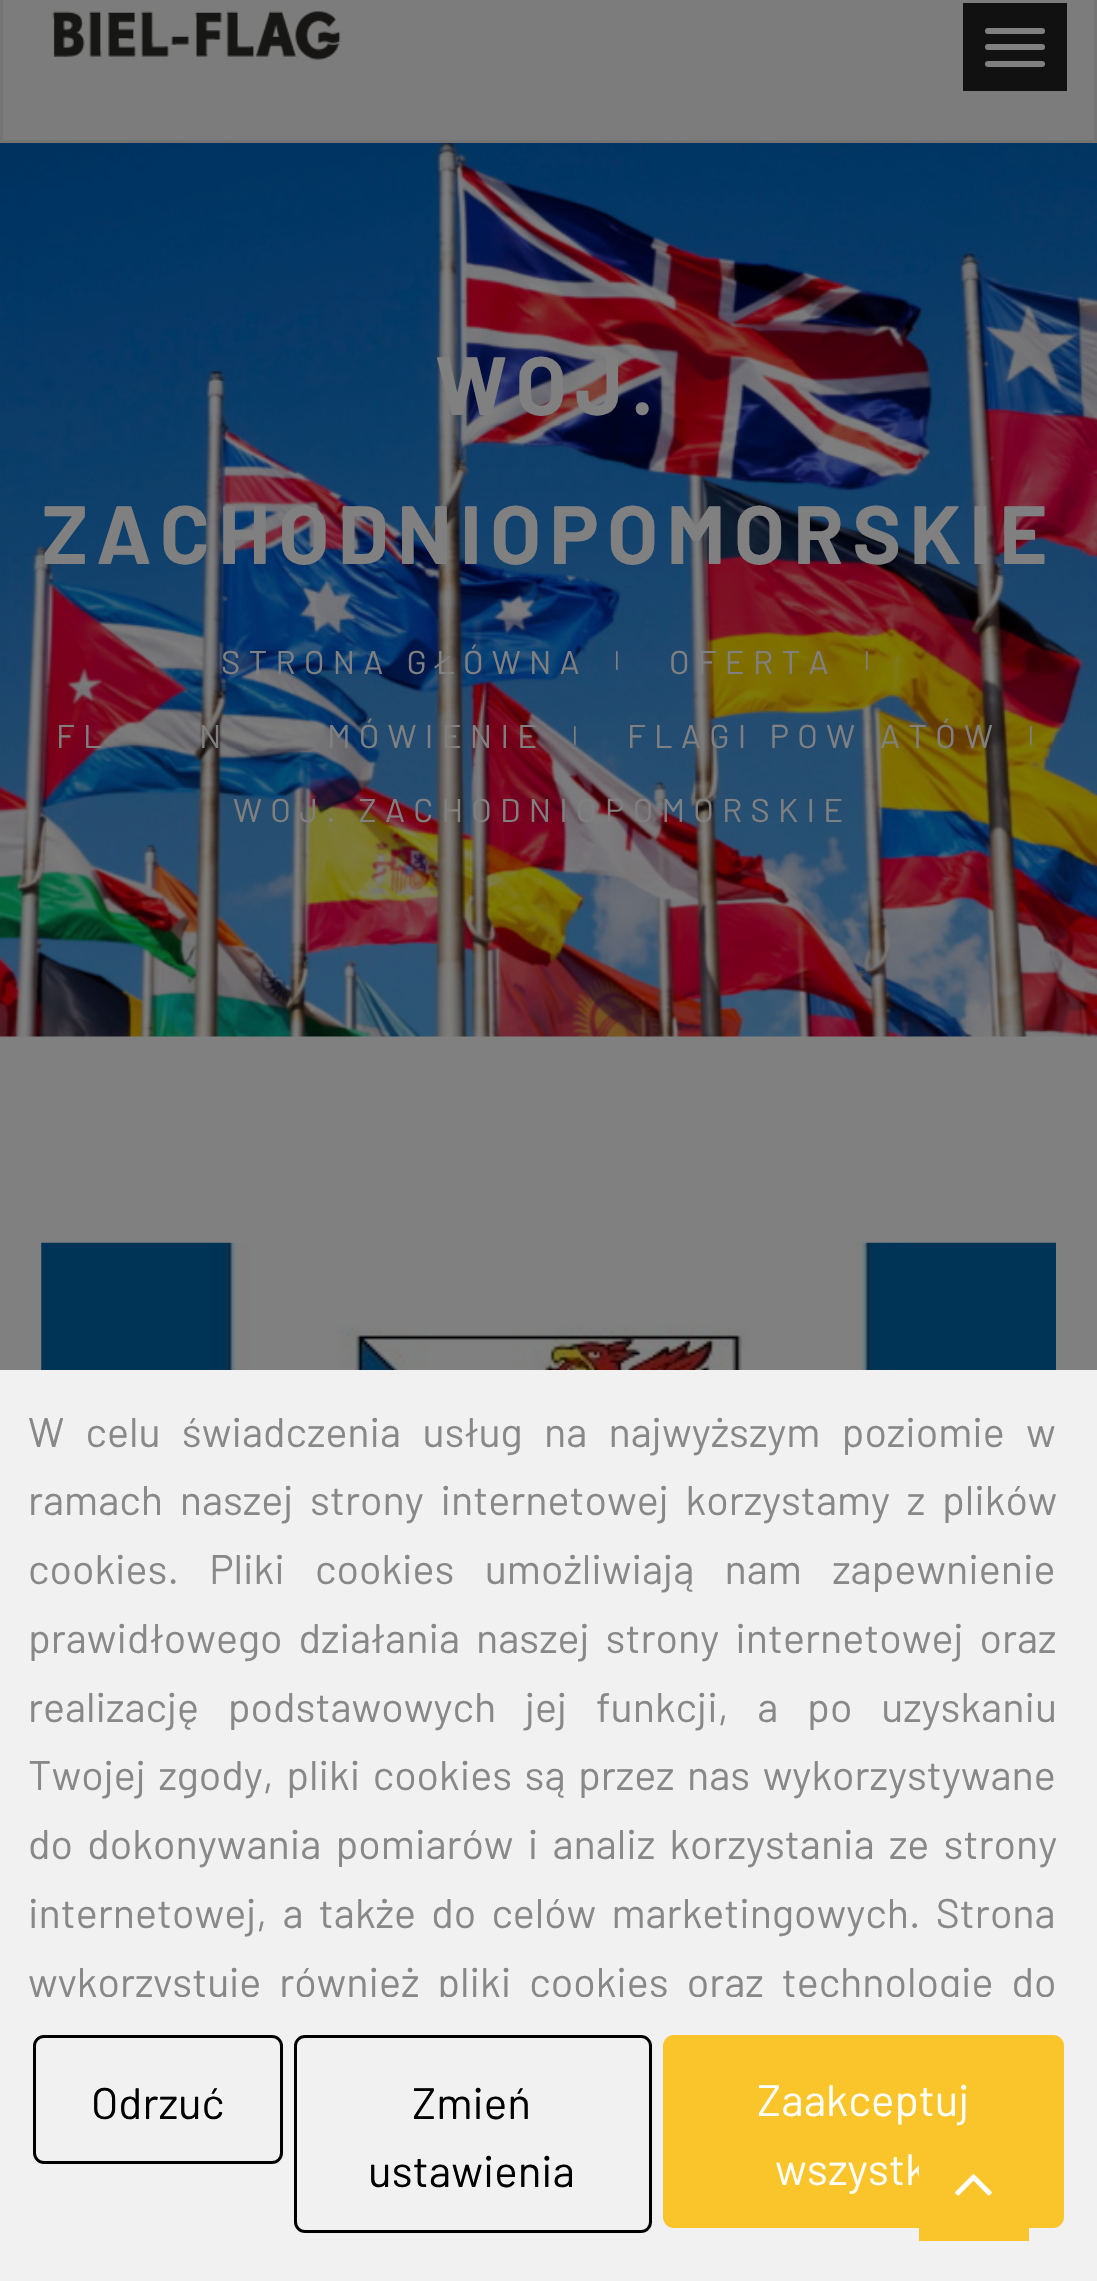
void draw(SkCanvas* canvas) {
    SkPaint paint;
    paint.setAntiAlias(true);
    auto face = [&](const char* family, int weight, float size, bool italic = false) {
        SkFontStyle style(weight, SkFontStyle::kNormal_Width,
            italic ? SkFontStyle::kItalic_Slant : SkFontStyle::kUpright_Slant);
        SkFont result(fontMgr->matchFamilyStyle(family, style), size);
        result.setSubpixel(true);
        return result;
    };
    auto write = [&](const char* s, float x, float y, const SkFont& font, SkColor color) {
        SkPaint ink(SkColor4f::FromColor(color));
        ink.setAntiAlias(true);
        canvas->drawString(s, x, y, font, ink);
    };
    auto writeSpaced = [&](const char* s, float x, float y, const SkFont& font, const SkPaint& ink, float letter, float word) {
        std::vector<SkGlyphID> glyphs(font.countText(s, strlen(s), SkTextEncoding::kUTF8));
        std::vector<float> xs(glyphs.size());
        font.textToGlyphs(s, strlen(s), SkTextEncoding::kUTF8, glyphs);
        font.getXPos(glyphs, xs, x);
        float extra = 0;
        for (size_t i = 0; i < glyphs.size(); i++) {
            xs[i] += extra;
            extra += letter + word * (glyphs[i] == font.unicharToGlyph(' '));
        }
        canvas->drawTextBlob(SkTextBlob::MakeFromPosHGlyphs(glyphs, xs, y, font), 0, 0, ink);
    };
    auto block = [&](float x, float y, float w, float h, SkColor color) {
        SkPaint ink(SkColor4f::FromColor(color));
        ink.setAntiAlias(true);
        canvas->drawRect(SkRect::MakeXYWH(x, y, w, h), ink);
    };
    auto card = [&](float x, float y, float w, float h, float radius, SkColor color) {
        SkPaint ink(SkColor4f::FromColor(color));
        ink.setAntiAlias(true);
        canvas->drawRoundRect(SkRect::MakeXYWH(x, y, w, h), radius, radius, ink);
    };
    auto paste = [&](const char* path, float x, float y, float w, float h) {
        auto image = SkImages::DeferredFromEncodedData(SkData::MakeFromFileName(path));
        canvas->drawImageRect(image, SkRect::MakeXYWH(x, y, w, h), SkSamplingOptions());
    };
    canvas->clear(SkColorSetRGB(128, 128, 128));
    paint.setColor(SkColorSetRGB(124, 124, 124));
    canvas->drawRect(SkRect::MakeXYWH(1.5f, -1.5f, 1094, 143), paint);
    paint.setStyle(SkPaint::kStroke_Style);
    paint.setStrokeWidth(3);
    paint.setColor(SkColorSetRGB(116, 116, 116));
    canvas->drawRect(SkRect::MakeXYWH(1.5f, -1.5f, 1094, 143), paint);
    paste("pic1.png", 52, 11, 289, 49);
    block(963, 3, 104, 88, SkColorSetRGB(17, 17, 17));
    card(985, 28, 60, 6, 3, SkColorSetRGB(128, 128, 128));
    card(985, 44, 60, 6, 3, SkColorSetRGB(128, 128, 128));
    card(985, 61, 60, 6, 3, SkColorSetRGB(128, 128, 128));
    paste("pic2.png", 0, 143, 1097, 894);
    auto kFont1 = face("Barlow", 700, 82.5f);
    paint.setStyle(SkPaint::kFill_Style);
    paint.setColor(SkColorSetRGB(128, 128, 128));
    writeSpaced("WOJ.", 435, 415, kFont1, paint, 8.25f, 0);
    writeSpaced("ZACHODNIOPOMORSKIE", 42, 564, kFont1, paint, 8.25f, 0);
    auto kFont2 = face("Barlow", 400, 33);
    writeSpaced("STRONA GŁÓWNA", 221, 674, kFont2, paint, 8.25f, 0);
    auto kFont3 = face("Barlow", 400, 22);
    writeSpaced("|", 615, 668, kFont3, paint, 8.25f, 0);
    writeSpaced("OFERTA", 669, 674, kFont2, paint, 8.25f, 0);
    writeSpaced("|", 865, 668, kFont3, paint, 8.25f, 0);
    writeSpaced("FL", 56, 748, kFont2, paint, 8.25f, 0);
    writeSpaced("N", 199, 748, kFont2, paint, 8.25f, 0);
    writeSpaced("MÓWIENIE", 327, 748, kFont2, paint, 8.25f, 0);
    writeSpaced("|", 573, 743, kFont3, paint, 8.25f, 0);
    writeSpaced("FLAGI POWIATÓW", 627, 748, kFont2, paint, 8.25f, 0);
    writeSpaced("|", 1029, 743, kFont3, paint, 8.25f, 0);
    writeSpaced("WOJ. ZACHODNIOPOMORSKIE", 233, 822, kFont2, paint, 8.25f, 0);
    paste("pic3.png", 41, 1242, 1015, 128);
    block(0, 1370, 1097, 911, SkColorSetRGB(241, 241, 241));
    card(663, 2035, 401, 193, 11, SkColorSetRGB(250, 196, 43));
    auto kFont4 = face("Barlow", 400, 44);
    write("wszystk", 775, 2185, kFont4, SK_ColorWHITE);
    block(919, 2162, 110, 79, SkColorSetRGB(250, 196, 43));
    paste("pic4.png", 955, 2174, 37, 22);
    auto kFont5 = face("Barlow", 400, 41.25f);
    paint.setColor(SkColorSetRGB(136, 136, 136));
    writeSpaced("W celu świadczenia usług na najwyższym poziomie w", 28, 1447, kFont5, paint, 0, 13);
    writeSpaced("ramach naszej strony internetowej korzystamy z plików", 28, 1515, kFont5, paint, 0, 8.5f);
    writeSpaced("cookies. Pliki cookies umożliwiają nam zapewnienie", 28, 1584, kFont5, paint, 0, 22);
    writeSpaced("prawidłowego działania naszej strony internetowej oraz", 28, 1653, kFont5, paint, 0, 7.75f);
    writeSpaced("realizację podstawowych jej funkcji, a po uzyskaniu", 28, 1722, kFont5, paint, 0, 20.5f);
    writeSpaced("Twojej zgody, pliki cookies są przez nas wykorzystywane", 28, 1790, kFont5, paint, 0, 4.25f);
    writeSpaced("do dokonywania pomiarów i analiz korzystania ze strony", 28, 1859, kFont5, paint, 0, 6);
    writeSpaced("internetowej, a także do celów marketingowych. Strona", 28, 1928, kFont5, paint, 0, 7);
    canvas->save();
    canvas->clipRect(SkRect::MakeXYWH(28, 1397, 1042, 600));
    writeSpaced("wykorzystuje również pliki cookies oraz technologie do", 28, 1997, kFont5, paint, 0, 9.75f);
    canvas->restore();
    paint.setStyle(SkPaint::kStroke_Style);
    paint.setColor(SK_ColorBLACK);
    canvas->drawRoundRect(SkRect::MakeXYWH(34.5f, 2036.5f, 247, 126), 9.5f, 9.5f, paint);
    write("Odrzuć", 91, 2119, kFont4, SK_ColorBLACK);
    canvas->drawRoundRect(SkRect::MakeXYWH(295.5f, 2036.5f, 355, 195), 9.5f, 9.5f, paint);
    write("Zmień", 412, 2119, kFont4, SK_ColorBLACK);
    write("ustawienia", 368, 2187, kFont4, SK_ColorBLACK);
    write("Zaakceptuj", 757, 2116, kFont4, SK_ColorWHITE);
}
